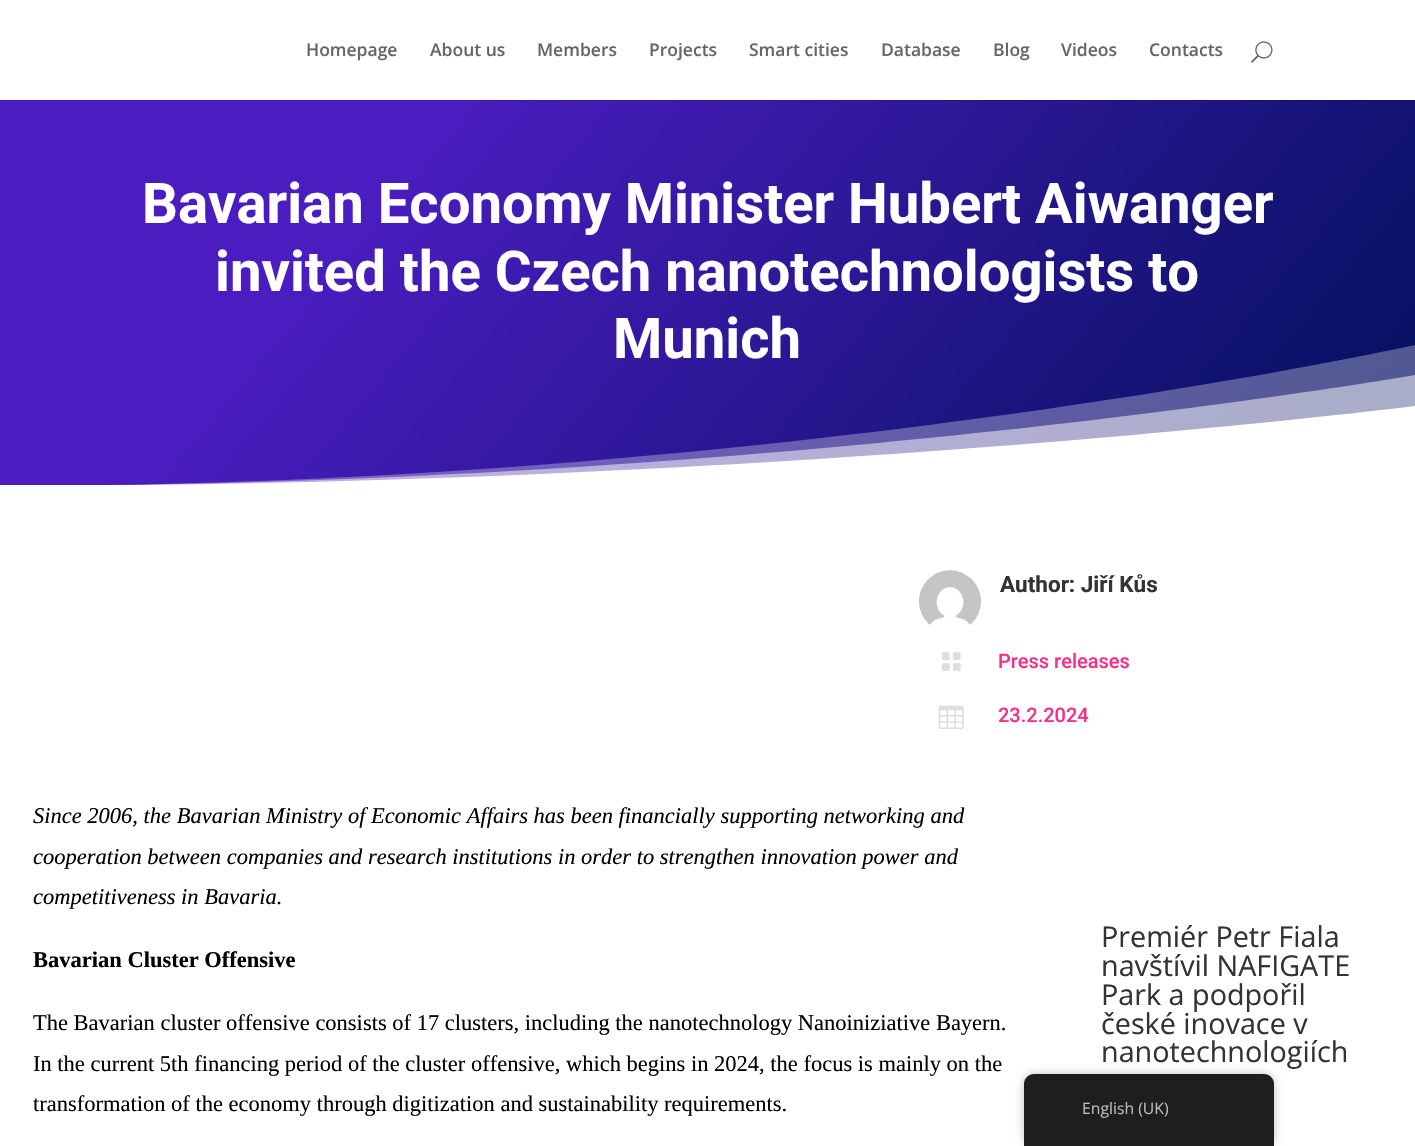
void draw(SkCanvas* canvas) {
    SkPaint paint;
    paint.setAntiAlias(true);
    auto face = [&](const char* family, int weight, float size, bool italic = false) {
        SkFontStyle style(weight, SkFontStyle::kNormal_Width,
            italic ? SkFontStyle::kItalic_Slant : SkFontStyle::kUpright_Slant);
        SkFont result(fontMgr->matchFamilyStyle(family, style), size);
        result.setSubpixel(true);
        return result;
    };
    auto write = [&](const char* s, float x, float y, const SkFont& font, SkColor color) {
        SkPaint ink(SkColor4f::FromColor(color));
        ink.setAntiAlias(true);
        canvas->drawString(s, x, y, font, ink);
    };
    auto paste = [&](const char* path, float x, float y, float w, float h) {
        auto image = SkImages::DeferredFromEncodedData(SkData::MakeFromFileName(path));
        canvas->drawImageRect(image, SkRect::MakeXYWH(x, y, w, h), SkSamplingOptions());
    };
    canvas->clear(SK_ColorWHITE);
    auto kFont1 = face("Open Sans", 600, 17.5f);
    write("Homepage", 306, 56, kFont1, SkColorSetRGB(102, 102, 102));
    write("About us", 430, 56, kFont1, SkColorSetRGB(102, 102, 102));
    write("Members", 537, 56, kFont1, SkColorSetRGB(102, 102, 102));
    write("Projects", 649, 56, kFont1, SkColorSetRGB(102, 102, 102));
    write("Smart cities", 749, 56, kFont1, SkColorSetRGB(102, 102, 102));
    write("Database", 881, 56, kFont1, SkColorSetRGB(102, 102, 102));
    write("Blog", 993, 56, kFont1, SkColorSetRGB(102, 102, 102));
    write("Videos", 1061, 56, kFont1, SkColorSetRGB(102, 102, 102));
    write("Contacts", 1149, 56, kFont1, SkColorSetRGB(102, 102, 102));
    paste("pic1.png", 1251, 41, 22, 22);
    {
        const SkColor colors[] = {SkColorSetRGB(75, 29, 193), SkColorSetRGB(0, 16, 89)};
        const float stops[] = {0.25f, 1};
        const SkPoint ends[] = {{198, -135}, {1217, 720}};
        paint.setShader(SkGradientShader::MakeLinear(ends, colors, stops, 2, SkTileMode::kClamp));
        paint.setAlpha(255);
    }
    canvas->drawRect(SkRect::MakeXYWH(0, 101, 1415, 384), paint);
    {
        const SkColor colors[] = {SkColorSetRGB(68, 26, 174), SkColorSetRGB(0, 14, 80)};
        const float stops[] = {0.25f, 1};
        const SkPoint ends[] = {{198, -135}, {1217, 720}};
        paint.setShader(SkGradientShader::MakeLinear(ends, colors, stops, 2, SkTileMode::kClamp));
        paint.setAlpha(255);
    }
    canvas->drawRect(SkRect::MakeXYWH(0, 100, 1415, 1), paint);
    auto kFont2 = face("Roboto", 700, 56.25f);
    write("Bavarian Economy Minister Hubert Aiwanger", 142, 223, kFont2, SK_ColorWHITE);
    write("invited the Czech nanotechnologists to", 215, 291, kFont2, SK_ColorWHITE);
    paint.setShader(nullptr);
    paint.setColor(SkColorSetARGB(77, 255, 255, 255));
    canvas->drawPath(SkPathBuilder().moveTo(1415, 486).lineTo(0, 486).cubicTo(781, 486, 1415, 345, 1415, 345).close().detach(), paint);
    write("Munich", 613, 358, kFont2, SK_ColorWHITE);
    paint.setColor(SkColorSetARGB(128, 255, 255, 255));
    canvas->drawPath(SkPathBuilder().moveTo(1415, 486).lineTo(0, 486).cubicTo(781, 486, 1415, 375, 1415, 375).close().detach(), paint);
    paint.setColor(SK_ColorWHITE);
    canvas->drawPath(SkPathBuilder().moveTo(1415, 486).lineTo(0, 486).cubicTo(781, 486, 1415, 406, 1415, 406).close().detach(), paint);
    paste("pic2.png", 919, 570, 62, 56);
    auto kFont3 = face("Roboto", 700, 22.5f);
    write("Author: Jiří Kůs", 1000, 592, kFont3, SkColorSetRGB(51, 51, 51));
    paste("pic3.png", 941, 652, 20, 19);
    auto kFont4 = face("Roboto", 500, 20);
    write("Press releases", 998, 668, kFont4, SkColorSetRGB(249, 44, 139));
    paste("pic4.png", 938, 705, 26, 24);
    write("23.2.2024", 998, 722, kFont4, SkColorSetRGB(249, 44, 139));
    auto kFont5 = face("Liberation Serif", 400, 22.5f, true);
    write("Since 2006, the Bavarian Ministry of Economic Affairs has been financially supporting networking and", 33, 823, kFont5, SK_ColorBLACK);
    write("cooperation between companies and research institutions in order to strengthen innovation power and", 33, 864, kFont5, SK_ColorBLACK);
    write("competitiveness in Bavaria.", 33, 904, kFont5, SK_ColorBLACK);
    auto kFont6 = face("Liberation Serif", 700, 22.5f);
    write("Bavarian Cluster Offensive", 33, 967, kFont6, SK_ColorBLACK);
    auto kFont7 = face("Liberation Serif", 400, 22.5f);
    write("The Bavarian cluster offensive consists of 17 clusters, including the nanotechnology Nanoiniziative Bayern.", 33, 1030, kFont7, SK_ColorBLACK);
    write("In the current 5th financing period of the cluster offensive, which begins in 2024, the focus is mainly on the", 33, 1071, kFont7, SK_ColorBLACK);
    write("transformation of the economy through digitization and sustainability requirements.", 33, 1111, kFont7, SK_ColorBLACK);
    auto kFont8 = face("Open Sans", 400, 28.75f);
    write("Premiér Petr Fiala", 1101, 947, kFont8, SkColorSetRGB(51, 51, 51));
    write("navštívil NAFIGATE", 1101, 976, kFont8, SkColorSetRGB(51, 51, 51));
    write("Park a podpořil", 1101, 1005, kFont8, SkColorSetRGB(51, 51, 51));
    write("české inovace v", 1101, 1034, kFont8, SkColorSetRGB(51, 51, 51));
    write("nanotechnologiích", 1101, 1062, kFont8, SkColorSetRGB(51, 51, 51));
    paint.setColor(SkColorSetARGB(64, 0, 0, 0));
    paint.setMaskFilter(SkMaskFilter::MakeBlur(kNormal_SkBlurStyle, 5));
    canvas->drawRoundRect(SkRect::MakeXYWH(1024, 1074, 250, 72), 10, 10, paint);
    paint.setMaskFilter(nullptr);
    paint.setColor(SkColorSetRGB(30, 30, 30));
    canvas->drawPath(SkPathBuilder().moveTo(1034, 1074).lineTo(1264, 1074).cubicTo(1269.5f, 1074, 1274, 1078.5f, 1274, 1084).lineTo(1274, 1146).lineTo(1024, 1146).lineTo(1024, 1084).cubicTo(1024, 1078.5f, 1028.5f, 1074, 1034, 1074).close().detach(), paint);
    auto kFont9 = face("Open Sans", 400, 15.75f);
    write("English (UK)", 1082, 1114, kFont9, SkColorSetRGB(189, 189, 189));
}
